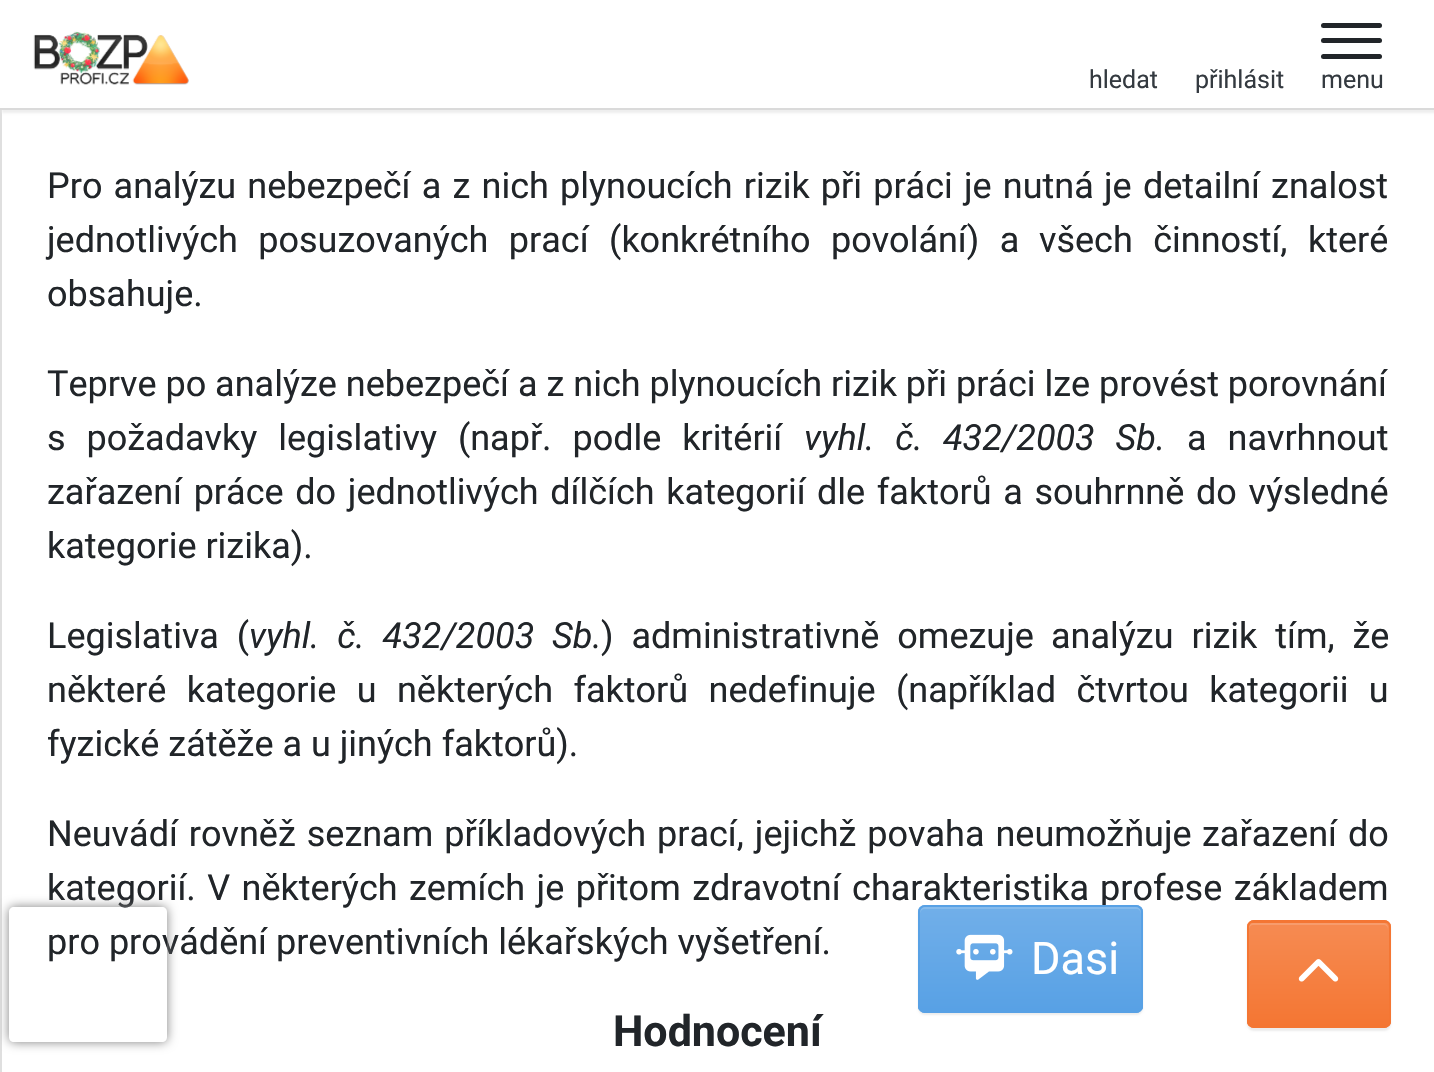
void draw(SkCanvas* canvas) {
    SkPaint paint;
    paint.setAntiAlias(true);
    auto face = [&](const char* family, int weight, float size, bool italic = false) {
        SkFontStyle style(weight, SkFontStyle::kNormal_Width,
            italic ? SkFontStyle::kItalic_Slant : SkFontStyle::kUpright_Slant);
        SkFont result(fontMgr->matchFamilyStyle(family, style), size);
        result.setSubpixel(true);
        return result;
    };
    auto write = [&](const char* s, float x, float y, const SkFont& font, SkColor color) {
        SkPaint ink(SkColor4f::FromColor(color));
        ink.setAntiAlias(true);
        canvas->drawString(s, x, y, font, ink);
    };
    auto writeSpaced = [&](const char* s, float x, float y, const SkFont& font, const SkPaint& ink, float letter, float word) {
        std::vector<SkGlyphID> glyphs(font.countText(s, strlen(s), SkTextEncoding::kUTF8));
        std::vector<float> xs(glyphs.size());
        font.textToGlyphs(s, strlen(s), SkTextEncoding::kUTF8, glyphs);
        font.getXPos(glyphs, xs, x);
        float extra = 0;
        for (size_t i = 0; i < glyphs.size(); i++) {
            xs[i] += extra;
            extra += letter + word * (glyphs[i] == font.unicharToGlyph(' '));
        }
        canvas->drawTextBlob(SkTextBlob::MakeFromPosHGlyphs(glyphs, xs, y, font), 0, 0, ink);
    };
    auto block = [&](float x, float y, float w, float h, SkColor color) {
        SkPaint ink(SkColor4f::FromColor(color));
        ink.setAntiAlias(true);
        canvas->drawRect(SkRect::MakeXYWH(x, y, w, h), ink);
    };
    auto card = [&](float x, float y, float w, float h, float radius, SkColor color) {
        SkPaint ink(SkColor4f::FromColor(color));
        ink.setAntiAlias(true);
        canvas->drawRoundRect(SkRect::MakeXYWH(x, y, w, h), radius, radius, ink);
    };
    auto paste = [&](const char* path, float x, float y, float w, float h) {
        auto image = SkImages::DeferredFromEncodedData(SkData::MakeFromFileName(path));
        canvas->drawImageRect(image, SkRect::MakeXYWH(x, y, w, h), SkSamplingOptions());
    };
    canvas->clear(SK_ColorWHITE);
    paint.setStyle(SkPaint::kStroke_Style);
    paint.setStrokeWidth(2);
    paint.setColor(SkColorSetRGB(223, 223, 223));
    canvas->drawRect(SkRect::MakeXYWH(1, -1, 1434, 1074), paint);
    paint.setStyle(SkPaint::kFill_Style);
    paint.setColor(SkColorSetRGB(238, 238, 238));
    paint.setMaskFilter(SkMaskFilter::MakeBlur(kNormal_SkBlurStyle, 1));
    canvas->drawRect(SkRect::MakeXYWH(2, 2, 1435, 111), paint);
    paint.setMaskFilter(nullptr);
    block(0, 0, 1434, 108, SK_ColorWHITE);
    block(0, 108, 1434, 2, SkColorSetRGB(218, 218, 218));
    paste("pic1.png", 33, 31, 156, 54);
    auto kFont1 = face("Roboto", 400, 25);
    write("hledat", 1089, 88, kFont1, SkColorSetRGB(52, 58, 64));
    write("přihlásit", 1195, 88, kFont1, SkColorSetRGB(52, 58, 64));
    card(1321, 23, 61, 5, 2.5f, SkColorSetRGB(33, 37, 41));
    card(1321, 38, 61, 5, 2.5f, SkColorSetRGB(33, 37, 41));
    card(1321, 54, 61, 5, 2.5f, SkColorSetRGB(33, 37, 41));
    write("menu", 1321, 88, kFont1, SkColorSetRGB(52, 58, 64));
    auto kFont2 = face("Roboto", 400, 36);
    paint.setColor(SkColorSetRGB(33, 37, 41));
    writeSpaced("Pro analýzu nebezpečí a z nich plynoucích rizik při práci je nutná", 47, 198, kFont2, paint, 0, 2.25f);
    writeSpaced("je detailní znalost", 1104, 198, kFont2, paint, 0, 2.25f);
    writeSpaced("jednotlivých posuzovaných prací (konkrétního povolání) a", 47, 252, kFont2, paint, 0, 11.5f);
    writeSpaced("všech činností, které", 1039, 252, kFont2, paint, 0, 11.5f);
    write("obsahuje.", 47, 306, kFont2, SkColorSetRGB(33, 37, 41));
    write("Teprve po analýze nebezpečí a z nich plynoucích rizik při práci lze provést porovnání", 47, 396, kFont2, SkColorSetRGB(33, 37, 41));
    writeSpaced("s požadavky legislativy (např. podle kritérií", 47, 450, kFont2, paint, 0, 12);
    auto kFont3 = face("Roboto", 400, 36, true);
    writeSpaced("vyhl. č.", 804, 450, kFont3, paint, 0, 12);
    writeSpaced("432/2003 Sb.", 943, 450, kFont3, paint, 0, 12);
    writeSpaced("a navrhnout", 1187, 450, kFont2, paint, 0, 12);
    writeSpaced("zařazení práce do jednotlivých dílčích kategorií", 47, 504, kFont2, paint, 0, 2.75f);
    writeSpaced("dle faktorů a souhrnně do výsledné", 817, 504, kFont2, paint, 0, 2.75f);
    write("kategorie rizika).", 47, 558, kFont2, SkColorSetRGB(33, 37, 41));
    writeSpaced("Legislativa (", 47, 648, kFont2, paint, 0, 9);
    writeSpaced("vyhl. č. 432/2003 Sb.", 249, 648, kFont3, paint, 0, 9);
    writeSpaced(") administrativně omezuje", 601, 648, kFont2, paint, 0, 9);
    writeSpaced("analýzu rizik tím, že", 1051, 648, kFont2, paint, 0, 9);
    writeSpaced("některé kategorie u některých faktorů nedefinuje", 47, 702, kFont2, paint, 0, 11.5f);
    writeSpaced("(například čtvrtou kategorii u", 896, 702, kFont2, paint, 0, 11.5f);
    write("fyzické zátěže a u jiných faktorů).", 47, 756, kFont2, SkColorSetRGB(33, 37, 41));
    writeSpaced("Neuvádí rovněž seznam příkladových prací, jejichž povaha neumožňuje", 47, 846, kFont2, paint, 0, 2);
    writeSpaced("zařazení do", 1202, 846, kFont2, paint, 0, 2);
    writeSpaced("kategorií. V některých zemích je přitom zdravotní charakteristika", 47, 900, kFont2, paint, 0, 2.5f);
    writeSpaced("profese základem", 1100, 900, kFont2, paint, 0, 2.5f);
    write("pro provádění preventivních lékařských vyšetření.", 47, 954, kFont2, SkColorSetRGB(33, 37, 41));
    auto kFont4 = face("Roboto", 700, 43);
    write("Hodnocení", 613, 1046, kFont4, SkColorSetRGB(33, 37, 41));
    paint.setColor(SkColorSetARGB(18, 0, 0, 0));
    paint.setMaskFilter(SkMaskFilter::MakeBlur(kNormal_SkBlurStyle, 1));
    canvas->drawRoundRect(SkRect::MakeXYWH(918, 907, 225, 108), 7, 7, paint);
    paint.setMaskFilter(nullptr);
    card(918, 905, 225, 108, 7, SkColorSetRGB(88, 161, 229));
    canvas->save();
    canvas->clipPath(SkPathBuilder().moveTo(925, 905).lineTo(1136, 905).cubicTo(1140, 905, 1143, 908, 1143, 912).lineTo(1143, 1006).cubicTo(1143, 1010, 1140, 1013, 1136, 1013).lineTo(925, 1013).cubicTo(921, 1013, 918, 1010, 918, 1006).lineTo(918, 912).cubicTo(918, 908, 921, 905, 925, 905).close().detach(), true);
    {
        const SkColor colors[] = {SkColorSetRGB(113, 175, 233), SkColorSetRGB(88, 161, 229)};
        const float stops[] = {0, 1};
        const SkPoint ends[] = {{1031, 907}, {1031, 1010}};
        paint.setShader(SkGradientShader::MakeLinear(ends, colors, stops, 2, SkTileMode::kClamp));
        paint.setAlpha(255);
    }
    canvas->drawRect(SkRect::MakeXYWH(918, 907, 225, 103), paint);
    canvas->restore();
    paint.setShader(nullptr);
    paint.setColor(SkColorSetRGB(134, 187, 236));
    canvas->drawPath(SkPathBuilder().moveTo(925, 909).lineTo(1136, 909).cubicTo(1139, 909, 1141, 911, 1141, 914).lineTo(1141, 912).cubicTo(1141, 909, 1139, 907, 1136, 907).lineTo(925, 907).cubicTo(922, 907, 920, 909, 920, 912).lineTo(920, 914).cubicTo(920, 911, 922, 909, 925, 909).close().detach(), paint);
    paint.setStyle(SkPaint::kStroke_Style);
    paint.setColor(SkColorSetRGB(88, 161, 229));
    canvas->drawRoundRect(SkRect::MakeXYWH(919, 906, 223, 106), 6, 6, paint);
    paste("pic2.png", 956, 934, 57, 46);
    auto kFont5 = face("Roboto", 400, 45);
    write("Dasi", 1031, 974, kFont5, SK_ColorWHITE);
    paint.setStyle(SkPaint::kFill_Style);
    paint.setColor(SkColorSetARGB(18, 0, 0, 0));
    paint.setMaskFilter(SkMaskFilter::MakeBlur(kNormal_SkBlurStyle, 1));
    canvas->drawRoundRect(SkRect::MakeXYWH(1247, 923, 144, 108), 7, 7, paint);
    paint.setMaskFilter(nullptr);
    card(1247, 920, 144, 108, 7, SkColorSetRGB(244, 118, 51));
    canvas->save();
    canvas->clipPath(SkPathBuilder().moveTo(1254, 920).lineTo(1384, 920).cubicTo(1388, 920, 1391, 923, 1391, 927).lineTo(1391, 1021).cubicTo(1391, 1025, 1388, 1028, 1384, 1028).lineTo(1254, 1028).cubicTo(1250, 1028, 1247, 1025, 1247, 1021).lineTo(1247, 927).cubicTo(1247, 923, 1250, 920, 1254, 920).close().detach(), true);
    {
        const SkColor colors[] = {SkColorSetRGB(246, 139, 82), SkColorSetRGB(244, 118, 51)};
        const float stops[] = {0, 1};
        const SkPoint ends[] = {{1319, 923}, {1319, 1026}};
        paint.setShader(SkGradientShader::MakeLinear(ends, colors, stops, 2, SkTileMode::kClamp));
        paint.setAlpha(255);
    }
    canvas->drawRect(SkRect::MakeXYWH(1247, 923, 144, 103), paint);
    canvas->restore();
    paint.setShader(nullptr);
    paint.setColor(SkColorSetRGB(247, 156, 108));
    canvas->drawPath(SkPathBuilder().moveTo(1253, 925).lineTo(1384, 925).cubicTo(1386, 925, 1388, 927, 1388, 929).lineTo(1388, 928).cubicTo(1388, 925, 1386, 923, 1383, 923).lineTo(1254, 923).cubicTo(1251, 923, 1249, 925, 1249, 928).lineTo(1249, 929).cubicTo(1249, 927, 1251, 925, 1253, 925).close().detach(), paint);
    paint.setStyle(SkPaint::kStroke_Style);
    paint.setColor(SkColorSetRGB(244, 118, 51));
    canvas->drawRoundRect(SkRect::MakeXYWH(1248, 921, 142, 106), 6, 6, paint);
    paste("pic3.png", 1298, 959, 41, 23);
    canvas->save();
    canvas->clipPath(SkPathBuilder(SkPathFillType::kEvenOdd).moveTo(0, 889).lineTo(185, 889).lineTo(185, 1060).lineTo(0, 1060).close().moveTo(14, 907).lineTo(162, 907).cubicTo(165, 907, 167, 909, 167, 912).lineTo(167, 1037).cubicTo(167, 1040, 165, 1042, 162, 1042).lineTo(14, 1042).cubicTo(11, 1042, 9, 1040, 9, 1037).lineTo(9, 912).cubicTo(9, 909, 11, 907, 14, 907).close().detach(), true);
    paint.setStyle(SkPaint::kFill_Style);
    paint.setColor(SkColorSetRGB(128, 128, 128));
    paint.setMaskFilter(SkMaskFilter::MakeBlur(kNormal_SkBlurStyle, 5.5f));
    canvas->drawRoundRect(SkRect::MakeXYWH(9, 907, 158, 135), 5, 5, paint);
    paint.setMaskFilter(nullptr);
    canvas->restore();
}
